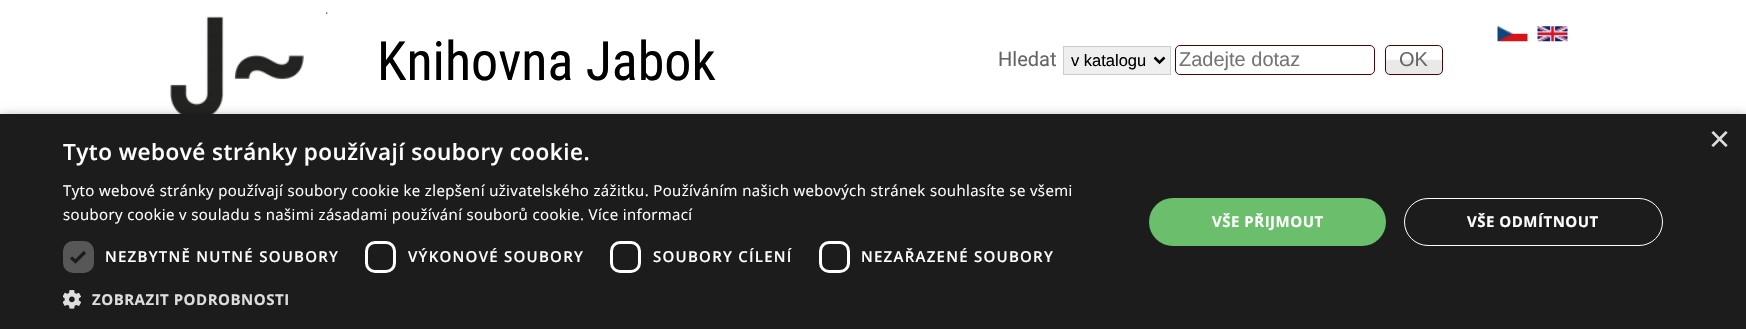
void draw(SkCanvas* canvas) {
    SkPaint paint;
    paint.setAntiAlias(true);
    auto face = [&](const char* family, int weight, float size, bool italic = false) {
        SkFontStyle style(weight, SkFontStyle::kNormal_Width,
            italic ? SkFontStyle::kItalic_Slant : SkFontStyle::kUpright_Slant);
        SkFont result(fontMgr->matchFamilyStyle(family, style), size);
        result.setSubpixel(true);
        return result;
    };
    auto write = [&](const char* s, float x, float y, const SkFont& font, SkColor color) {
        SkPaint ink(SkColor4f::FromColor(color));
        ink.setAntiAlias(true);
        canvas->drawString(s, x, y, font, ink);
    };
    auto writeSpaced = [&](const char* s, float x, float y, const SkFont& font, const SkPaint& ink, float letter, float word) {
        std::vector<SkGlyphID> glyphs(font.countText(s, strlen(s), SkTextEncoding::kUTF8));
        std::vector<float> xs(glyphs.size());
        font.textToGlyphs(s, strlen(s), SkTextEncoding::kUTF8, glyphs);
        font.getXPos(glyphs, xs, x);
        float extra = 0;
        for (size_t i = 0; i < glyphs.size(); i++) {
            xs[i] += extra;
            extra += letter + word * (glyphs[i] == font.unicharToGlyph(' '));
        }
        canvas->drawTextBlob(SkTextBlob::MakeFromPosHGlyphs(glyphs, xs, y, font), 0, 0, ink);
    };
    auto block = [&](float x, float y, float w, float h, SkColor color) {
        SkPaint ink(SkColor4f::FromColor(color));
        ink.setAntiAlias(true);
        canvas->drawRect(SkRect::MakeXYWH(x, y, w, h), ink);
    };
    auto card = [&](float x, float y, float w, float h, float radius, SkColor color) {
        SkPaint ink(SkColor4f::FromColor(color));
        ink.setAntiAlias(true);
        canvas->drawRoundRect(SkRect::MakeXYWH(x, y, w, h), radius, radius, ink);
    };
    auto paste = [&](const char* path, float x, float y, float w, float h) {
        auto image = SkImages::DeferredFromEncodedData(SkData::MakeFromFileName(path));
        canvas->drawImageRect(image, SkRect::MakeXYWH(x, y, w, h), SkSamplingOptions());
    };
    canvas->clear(SK_ColorWHITE);
    paste("pic1.png", 169, 12, 159, 102);
    auto kFont1 = face("Roboto Condensed", 400, 54);
    write("Knihovna Jabok", 377, 80, kFont1, SK_ColorBLACK);
    paste("pic2.png", 1497, 26, 31, 16);
    paste("pic3.png", 1537, 26, 31, 16);
    auto kFont2 = face("Roboto", 400, 20);
    write("Hledat", 998, 66, kFont2, SkColorSetRGB(102, 102, 102));
    paint.setColor(SkColorSetRGB(239, 239, 239));
    canvas->drawRect(SkRect::MakeXYWH(1063.5f, 46.5f, 107, 28), paint);
    paint.setStyle(SkPaint::kStroke_Style);
    paint.setStrokeWidth(1);
    paint.setColor(SkColorSetRGB(204, 204, 204));
    canvas->drawRect(SkRect::MakeXYWH(1063.5f, 46.5f, 107, 28), paint);
    paint.setStrokeWidth(2.5f);
    paint.setColor(SK_ColorBLACK);
    canvas->drawPath(SkPathBuilder().moveTo(1154.5f, 57.5f).lineTo(1159.5f, 62.5f).lineTo(1164.5f, 57.5f).detach(), paint);
    auto kFont3 = face("Liberation Sans", 400, 16.5f);
    write("v katalogu", 1071, 66, kFont3, SK_ColorBLACK);
    paint.setStrokeWidth(1);
    paint.setColor(SkColorSetRGB(85, 0, 0));
    canvas->drawRoundRect(SkRect::MakeXYWH(1175.5f, 45.5f, 199, 29), 4.5f, 4.5f, paint);
    auto kFont4 = face("Liberation Sans", 400, 20);
    write("Zadejte dotaz", 1179, 66, kFont4, SkColorSetRGB(117, 117, 117));
    paste("pic4.png", 1385, 59, 58, 16);
    canvas->drawRoundRect(SkRect::MakeXYWH(1385.5f, 45.5f, 57, 29), 4.5f, 4.5f, paint);
    write("OK", 1399, 66, kFont4, SkColorSetRGB(102, 102, 102));
    paint.setStyle(SkPaint::kFill_Style);
    paint.setColor(SkColorSetARGB(89, 0, 0, 0));
    paint.setMaskFilter(SkMaskFilter::MakeBlur(kNormal_SkBlurStyle, 5));
    canvas->drawRect(SkRect::MakeXYWH(1, 116, 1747, 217), paint);
    paint.setMaskFilter(nullptr);
    block(0, 114, 1746, 215, SkColorSetRGB(28, 28, 28));
    auto kFont5 = face("Liberation Sans", 400, 36);
    write("×", 1709, 151, kFont5, SkColorSetRGB(221, 221, 221));
    auto kFont6 = face("Open Sans", 600, 22.5f);
    paint.setColor(SK_ColorWHITE);
    writeSpaced("Tyto webové stránky používají soubory cookie.", 63, 160, kFont6, paint, 0.5f, 0);
    auto kFont7 = face("Open Sans", 400, 15);
    writeSpaced("Tyto webové stránky používají soubory cookie ke zlepšení uživatelského zážitku. Používáním našich webových stránek souhlasíte se všemi", 63, 196, kFont7, paint, 0.38f, 0);
    writeSpaced("soubory cookie v souladu s našimi zásadami používání souborů cookie. Více informací", 63, 220, kFont7, paint, 0.38f, 0);
    card(63, 241, 31, 32, 10, SkColorSetRGB(87, 87, 87));
    paint.setStyle(SkPaint::kStroke_Style);
    paint.setStrokeWidth(3.3f);
    paint.setColor(SkColorSetRGB(28, 28, 28));
    canvas->drawPath(SkPathBuilder().moveTo(71, 257.5f).lineTo(75.5f, 261.5f).lineTo(85, 252).detach(), paint);
    auto kFont8 = face("Open Sans", 600, 15);
    paint.setStyle(SkPaint::kFill_Style);
    paint.setColor(SK_ColorWHITE);
    writeSpaced("NEZBYTNĚ NUTNÉ SOUBORY", 105, 262, kFont8, paint, 1.25f, 0);
    paint.setStyle(SkPaint::kStroke_Style);
    paint.setStrokeWidth(3);
    canvas->drawRoundRect(SkRect::MakeXYWH(366.5f, 242.5f, 28, 29), 8.5f, 8.5f, paint);
    paint.setStyle(SkPaint::kFill_Style);
    writeSpaced("VÝKONOVÉ SOUBORY", 408, 262, kFont8, paint, 1.25f, 0);
    paint.setStyle(SkPaint::kStroke_Style);
    canvas->drawRoundRect(SkRect::MakeXYWH(611.5f, 242.5f, 28, 29), 8.5f, 8.5f, paint);
    paint.setStyle(SkPaint::kFill_Style);
    writeSpaced("SOUBORY CÍLENÍ", 653, 262, kFont8, paint, 1.25f, 0);
    paint.setStyle(SkPaint::kStroke_Style);
    canvas->drawRoundRect(SkRect::MakeXYWH(820.5f, 242.5f, 28, 29), 8.5f, 8.5f, paint);
    paint.setStyle(SkPaint::kFill_Style);
    writeSpaced("NEZAŘAZENÉ SOUBORY", 861, 262, kFont8, paint, 1.25f, 0);
    paste("pic5.png", 63, 290, 18, 19);
    auto kFont9 = face("Open Sans", 700, 15);
    paint.setColor(SkColorSetRGB(221, 221, 221));
    writeSpaced("ZOBRAZIT PODROBNOSTI", 92, 305, kFont9, paint, 0.5f, 0);
    card(1149, 198, 237, 48, 24, SkColorSetRGB(107, 190, 107));
    paint.setColor(SK_ColorWHITE);
    writeSpaced("VŠE PŘIJMOUT", 1212, 227, kFont9, paint, 0.5f, 0);
    paint.setStyle(SkPaint::kStroke_Style);
    paint.setStrokeWidth(1);
    canvas->drawRoundRect(SkRect::MakeXYWH(1404.5f, 198.5f, 258, 47), 23.5f, 23.5f, paint);
    paint.setStyle(SkPaint::kFill_Style);
    writeSpaced("VŠE ODMÍTNOUT", 1467, 227, kFont9, paint, 0.5f, 0);
}
